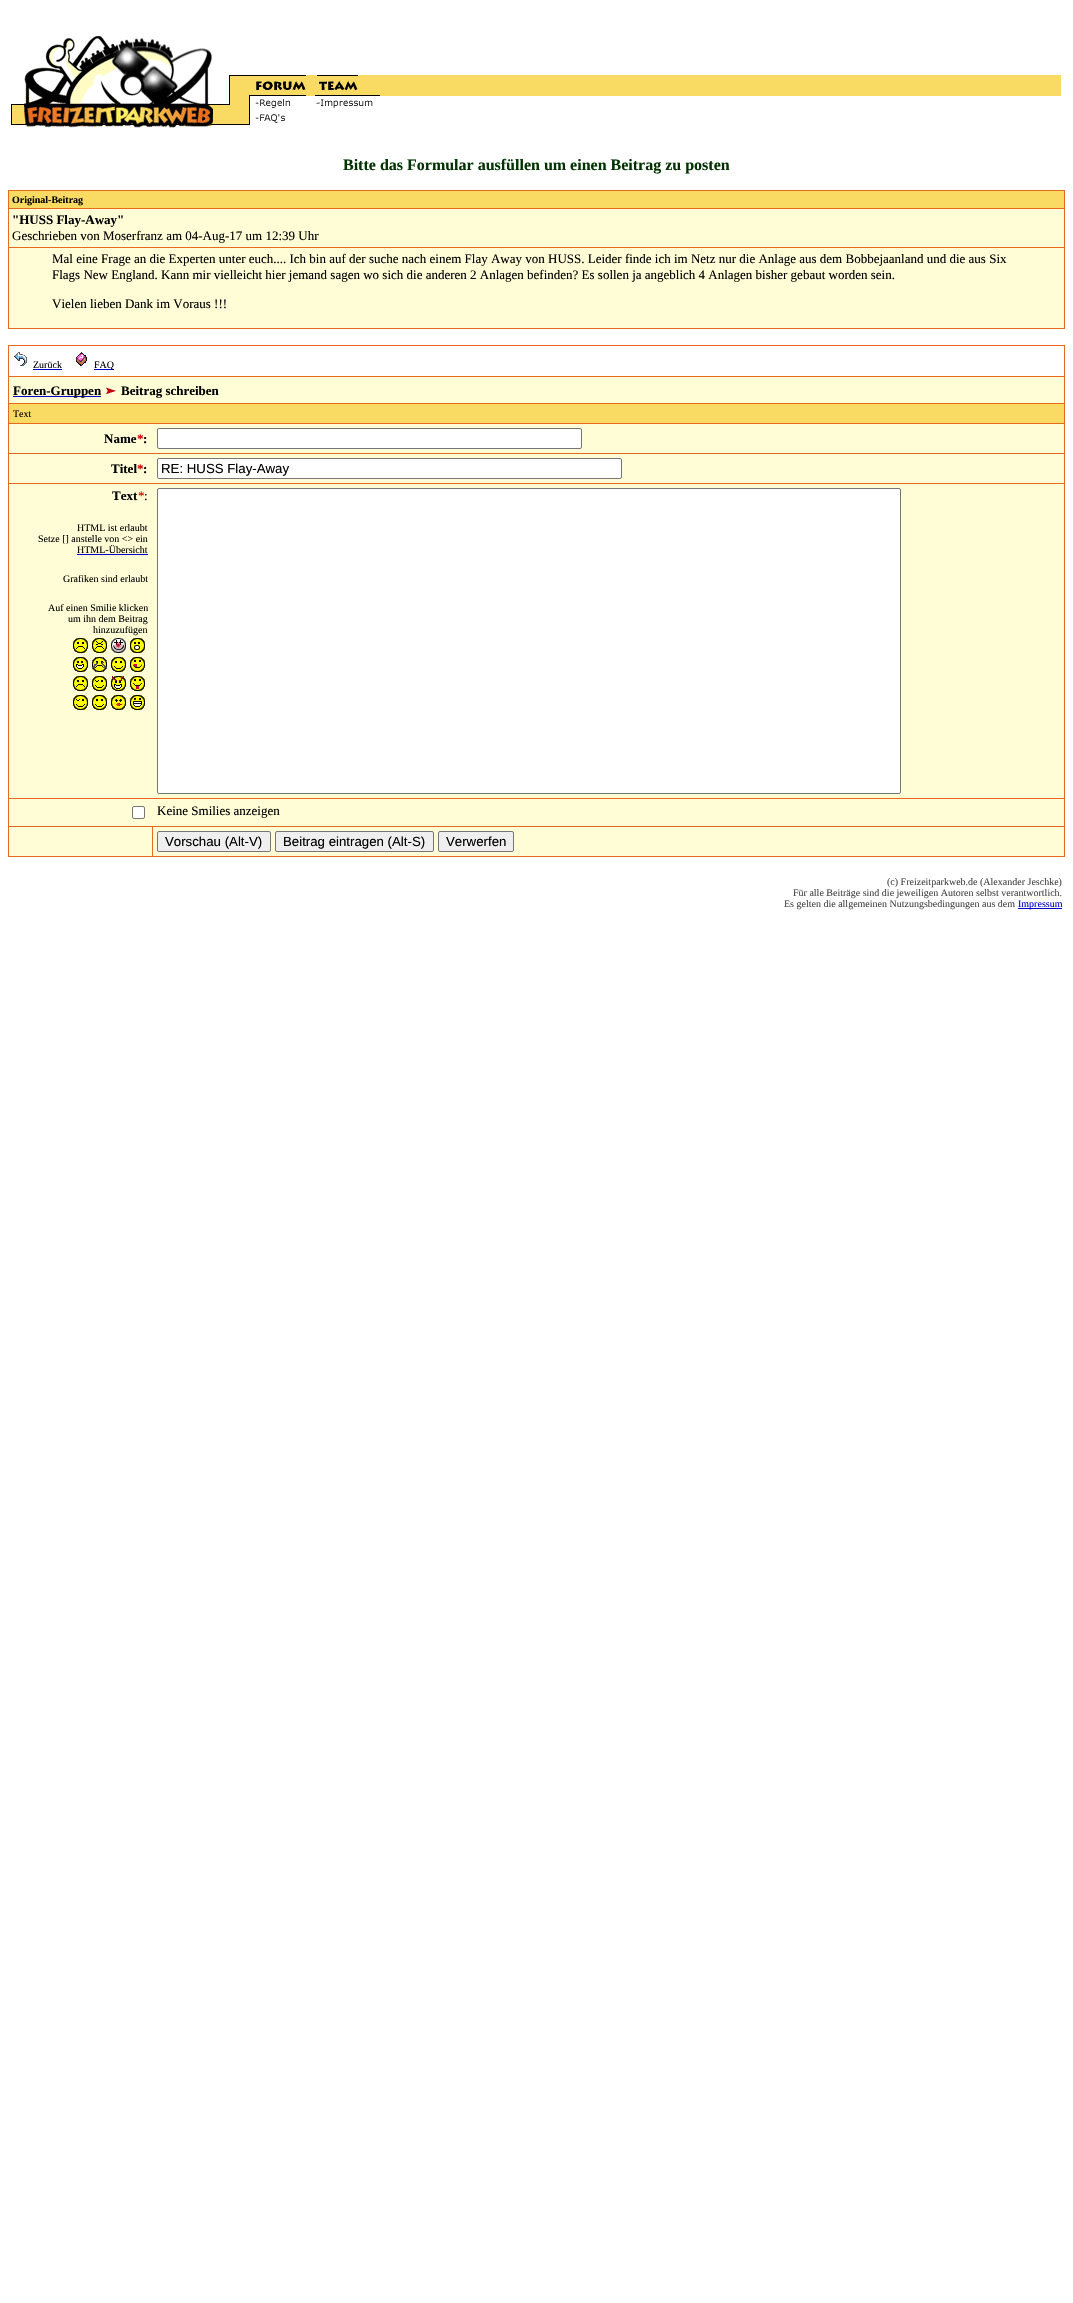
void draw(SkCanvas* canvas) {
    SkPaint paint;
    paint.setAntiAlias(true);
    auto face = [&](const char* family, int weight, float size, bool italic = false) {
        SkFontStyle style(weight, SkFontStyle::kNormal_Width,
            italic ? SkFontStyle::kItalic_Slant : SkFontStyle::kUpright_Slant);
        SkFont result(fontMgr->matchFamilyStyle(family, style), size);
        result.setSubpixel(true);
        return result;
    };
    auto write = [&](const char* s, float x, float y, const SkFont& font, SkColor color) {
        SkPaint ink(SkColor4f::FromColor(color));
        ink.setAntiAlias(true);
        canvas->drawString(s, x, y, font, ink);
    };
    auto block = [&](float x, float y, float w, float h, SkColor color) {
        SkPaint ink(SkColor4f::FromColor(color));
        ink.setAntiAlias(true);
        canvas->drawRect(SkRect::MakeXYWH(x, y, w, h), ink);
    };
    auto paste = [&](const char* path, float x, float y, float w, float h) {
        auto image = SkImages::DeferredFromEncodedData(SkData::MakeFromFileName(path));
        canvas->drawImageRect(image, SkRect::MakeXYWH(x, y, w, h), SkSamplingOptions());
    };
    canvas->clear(SK_ColorWHITE);
    block(254, 75, 807, 21, SkColorSetRGB(249, 219, 99));
    paste("pic1.png", 8, 36, 108, 59);
    paste("pic2.png", 116, 38, 111, 57);
    paste("pic3.png", 8, 95, 108, 33);
    paste("pic4.png", 116, 95, 111, 33);
    paste("pic5.png", 227, 75, 27, 50);
    paste("pic6.png", 254, 75, 52, 15);
    paste("pic7.png", 317, 75, 41, 16);
    paste("pic8.png", 254, 95, 52, 13);
    paste("pic9.png", 315, 95, 65, 13);
    paste("pic10.png", 255, 114, 30, 9);
    auto kFont1 = face("Liberation Serif", 700, 16);
    write("Bitte das Formular ausfüllen um einen Beitrag zu posten", 343, 170, kFont1, SkColorSetRGB(0, 51, 0));
    block(8, 190, 1057, 139, SkColorSetRGB(233, 106, 28));
    block(9, 191, 1055, 17, SkColorSetRGB(249, 219, 99));
    auto kFont2 = face("Liberation Serif", 700, 10);
    write("Original-Beitrag", 12, 203, kFont2, SK_ColorBLACK);
    block(9, 209, 1055, 38, SkColorSetRGB(255, 253, 214));
    auto kFont3 = face("Liberation Serif", 700, 13);
    write("\"HUSS Flay-Away\"", 12, 224, kFont3, SK_ColorBLACK);
    auto kFont4 = face("Liberation Serif", 400, 13);
    write("Geschrieben von Moserfranz am 04-Aug-17 um 12:39 Uhr", 12, 240, kFont4, SK_ColorBLACK);
    block(9, 248, 1055, 80, SkColorSetRGB(255, 253, 214));
    write("Mal eine Frage an die Experten unter euch.... Ich bin auf der suche nach einem Flay Away von HUSS. Leider finde ich im Netz nur die Anlage aus dem Bobbejaanland und die aus Six", 52, 263, kFont4, SK_ColorBLACK);
    write("Flags New England. Kann mir vielleicht hier jemand sagen wo sich die anderen 2 Anlagen befinden? Es sollen ja angeblich 4 Anlagen bisher gebaut worden sein.", 52, 279, kFont4, SK_ColorBLACK);
    write("Vielen lieben Dank im Voraus !!!", 52, 308, kFont4, SK_ColorBLACK);
    block(8, 345, 1057, 512, SkColorSetRGB(233, 106, 28));
    block(9, 346, 1055, 30, SK_ColorWHITE);
    paste("pic11.png", 14, 352, 13, 14);
    auto kFont5 = face("Liberation Serif", 400, 10);
    write("Zurück", 33, 368, kFont5, SK_ColorBLACK);
    block(33, 369, 29, 1, SkColorSetRGB(0, 0, 204));
    paste("pic12.png", 76, 352, 11, 14);
    block(94, 369, 20, 1, SkColorSetRGB(0, 0, 204));
    write("FAQ", 94, 368, kFont5, SK_ColorBLACK);
    block(9, 377, 1055, 26, SkColorSetRGB(255, 253, 214));
    block(13, 396, 88, 1, SkColorSetRGB(0, 0, 204));
    write("Foren-Gruppen", 13, 395, kFont3, SK_ColorBLACK);
    paste("pic13.png", 106, 387, 11, 8);
    write("Beitrag schreiben", 121, 395, kFont3, SK_ColorBLACK);
    block(9, 404, 1055, 19, SkColorSetRGB(249, 219, 99));
    write("Text", 13, 417, kFont5, SK_ColorBLACK);
    block(9, 424, 1055, 29, SkColorSetRGB(255, 253, 214));
    write("Name", 104, 443, kFont3, SK_ColorBLACK);
    write("*", 137, 443, kFont3, SkColorSetRGB(204, 0, 0));
    write(":", 143, 443, kFont3, SK_ColorBLACK);
    paint.setColor(SK_ColorWHITE);
    canvas->drawRoundRect(SkRect::MakeXYWH(157.5f, 428.5f, 424, 20), 1.5f, 1.5f, paint);
    paint.setStyle(SkPaint::kStroke_Style);
    paint.setStrokeWidth(1);
    paint.setColor(SkColorSetRGB(118, 118, 118));
    canvas->drawRoundRect(SkRect::MakeXYWH(157.5f, 428.5f, 424, 20), 1.5f, 1.5f, paint);
    block(9, 454, 1055, 29, SkColorSetRGB(255, 253, 214));
    write("Titel", 111, 473, kFont3, SK_ColorBLACK);
    write("*", 137, 473, kFont3, SkColorSetRGB(204, 0, 0));
    write(":", 143, 473, kFont3, SK_ColorBLACK);
    paint.setStyle(SkPaint::kFill_Style);
    paint.setColor(SK_ColorWHITE);
    canvas->drawRoundRect(SkRect::MakeXYWH(157.5f, 458.5f, 464, 20), 1.5f, 1.5f, paint);
    paint.setStyle(SkPaint::kStroke_Style);
    paint.setColor(SkColorSetRGB(118, 118, 118));
    canvas->drawRoundRect(SkRect::MakeXYWH(157.5f, 458.5f, 464, 20), 1.5f, 1.5f, paint);
    auto kFont6 = face("Liberation Sans", 400, 13.25f);
    write("RE: HUSS Flay-Away", 161, 473, kFont6, SK_ColorBLACK);
    block(9, 484, 1055, 314, SkColorSetRGB(255, 253, 214));
    write("Text", 112, 500, kFont3, SK_ColorBLACK);
    write("*", 138, 500, kFont4, SkColorSetRGB(204, 0, 0));
    write(":", 144, 500, kFont4, SK_ColorBLACK);
    write("HTML ist erlaubt", 77, 531, kFont5, SK_ColorBLACK);
    write("Setze [] anstelle von <> ein", 38, 542, kFont5, SK_ColorBLACK);
    write("HTML-Übersicht", 77, 553, kFont5, SK_ColorBLACK);
    block(77, 554, 71, 1, SkColorSetRGB(0, 0, 204));
    write("Grafiken sind erlaubt", 63, 582, kFont5, SK_ColorBLACK);
    write("Auf einen Smilie klicken", 48, 611, kFont5, SK_ColorBLACK);
    write("um ihn dem Beitrag", 68, 622, kFont5, SK_ColorBLACK);
    write("hinzuzufügen", 93, 633, kFont5, SK_ColorBLACK);
    paste("pic14.png", 73, 638, 15, 15);
    paste("pic15.png", 92, 638, 15, 15);
    paste("pic16.png", 111, 638, 15, 15);
    paste("pic17.png", 130, 638, 15, 15);
    paste("pic18.png", 73, 657, 15, 15);
    paste("pic19.png", 92, 657, 15, 15);
    paste("pic20.png", 111, 657, 15, 15);
    paste("pic21.png", 130, 657, 15, 15);
    paste("pic14.png", 73, 676, 15, 15);
    paste("pic22.png", 92, 676, 15, 15);
    paste("pic23.png", 111, 676, 15, 15);
    paste("pic24.png", 130, 676, 15, 15);
    paste("pic22.png", 73, 695, 15, 15);
    paste("pic20.png", 92, 695, 15, 15);
    paste("pic25.png", 111, 695, 15, 15);
    paste("pic26.png", 130, 695, 15, 15);
    paint.setStyle(SkPaint::kFill_Style);
    paint.setColor(SK_ColorWHITE);
    canvas->drawRoundRect(SkRect::MakeXYWH(157.5f, 488.5f, 743, 305), 1.5f, 1.5f, paint);
    paint.setStyle(SkPaint::kStroke_Style);
    paint.setColor(SkColorSetRGB(118, 118, 118));
    canvas->drawRoundRect(SkRect::MakeXYWH(157.5f, 488.5f, 743, 305), 1.5f, 1.5f, paint);
    block(9, 799, 1055, 27, SkColorSetRGB(255, 253, 214));
    paint.setStyle(SkPaint::kFill_Style);
    paint.setColor(SK_ColorWHITE);
    canvas->drawRoundRect(SkRect::MakeXYWH(132.5f, 806.5f, 12, 12), 1.5f, 1.5f, paint);
    paint.setStyle(SkPaint::kStroke_Style);
    paint.setColor(SkColorSetRGB(118, 118, 118));
    canvas->drawRoundRect(SkRect::MakeXYWH(132.5f, 806.5f, 12, 12), 1.5f, 1.5f, paint);
    write("Keine Smilies anzeigen", 157, 815, kFont4, SK_ColorBLACK);
    block(9, 827, 143, 29, SkColorSetRGB(255, 253, 214));
    block(153, 827, 911, 29, SkColorSetRGB(255, 253, 214));
    paint.setStyle(SkPaint::kFill_Style);
    paint.setColor(SkColorSetRGB(239, 239, 239));
    canvas->drawRoundRect(SkRect::MakeXYWH(157.5f, 831.5f, 113, 20), 1.5f, 1.5f, paint);
    paint.setStyle(SkPaint::kStroke_Style);
    paint.setColor(SkColorSetRGB(118, 118, 118));
    canvas->drawRoundRect(SkRect::MakeXYWH(157.5f, 831.5f, 113, 20), 1.5f, 1.5f, paint);
    write("Vorschau (Alt-V)", 165, 846, kFont6, SK_ColorBLACK);
    paint.setStyle(SkPaint::kFill_Style);
    paint.setColor(SkColorSetRGB(239, 239, 239));
    canvas->drawRoundRect(SkRect::MakeXYWH(275.5f, 831.5f, 158, 20), 1.5f, 1.5f, paint);
    paint.setStyle(SkPaint::kStroke_Style);
    paint.setColor(SkColorSetRGB(118, 118, 118));
    canvas->drawRoundRect(SkRect::MakeXYWH(275.5f, 831.5f, 158, 20), 1.5f, 1.5f, paint);
    write("Beitrag eintragen (Alt-S)", 283, 846, kFont6, SK_ColorBLACK);
    paint.setStyle(SkPaint::kFill_Style);
    paint.setColor(SkColorSetRGB(239, 239, 239));
    canvas->drawRoundRect(SkRect::MakeXYWH(438.5f, 831.5f, 75, 20), 1.5f, 1.5f, paint);
    paint.setStyle(SkPaint::kStroke_Style);
    paint.setColor(SkColorSetRGB(118, 118, 118));
    canvas->drawRoundRect(SkRect::MakeXYWH(438.5f, 831.5f, 75, 20), 1.5f, 1.5f, paint);
    write("Verwerfen", 446, 846, kFont6, SK_ColorBLACK);
    write("(c) Freizeitparkweb.de (Alexander Jeschke)", 887, 885, kFont5, SkColorSetRGB(68, 68, 68));
    write("Für alle Beiträge sind die jeweiligen Autoren selbst verantwortlich.", 793, 896, kFont5, SkColorSetRGB(68, 68, 68));
    write("Es gelten die allgemeinen Nutzungsbedingungen aus dem", 784, 907, kFont5, SkColorSetRGB(68, 68, 68));
    block(1018, 908, 44, 1, SkColorSetRGB(0, 0, 204));
    write("Impressum", 1018, 907, kFont5, SkColorSetRGB(0, 0, 204));
}
